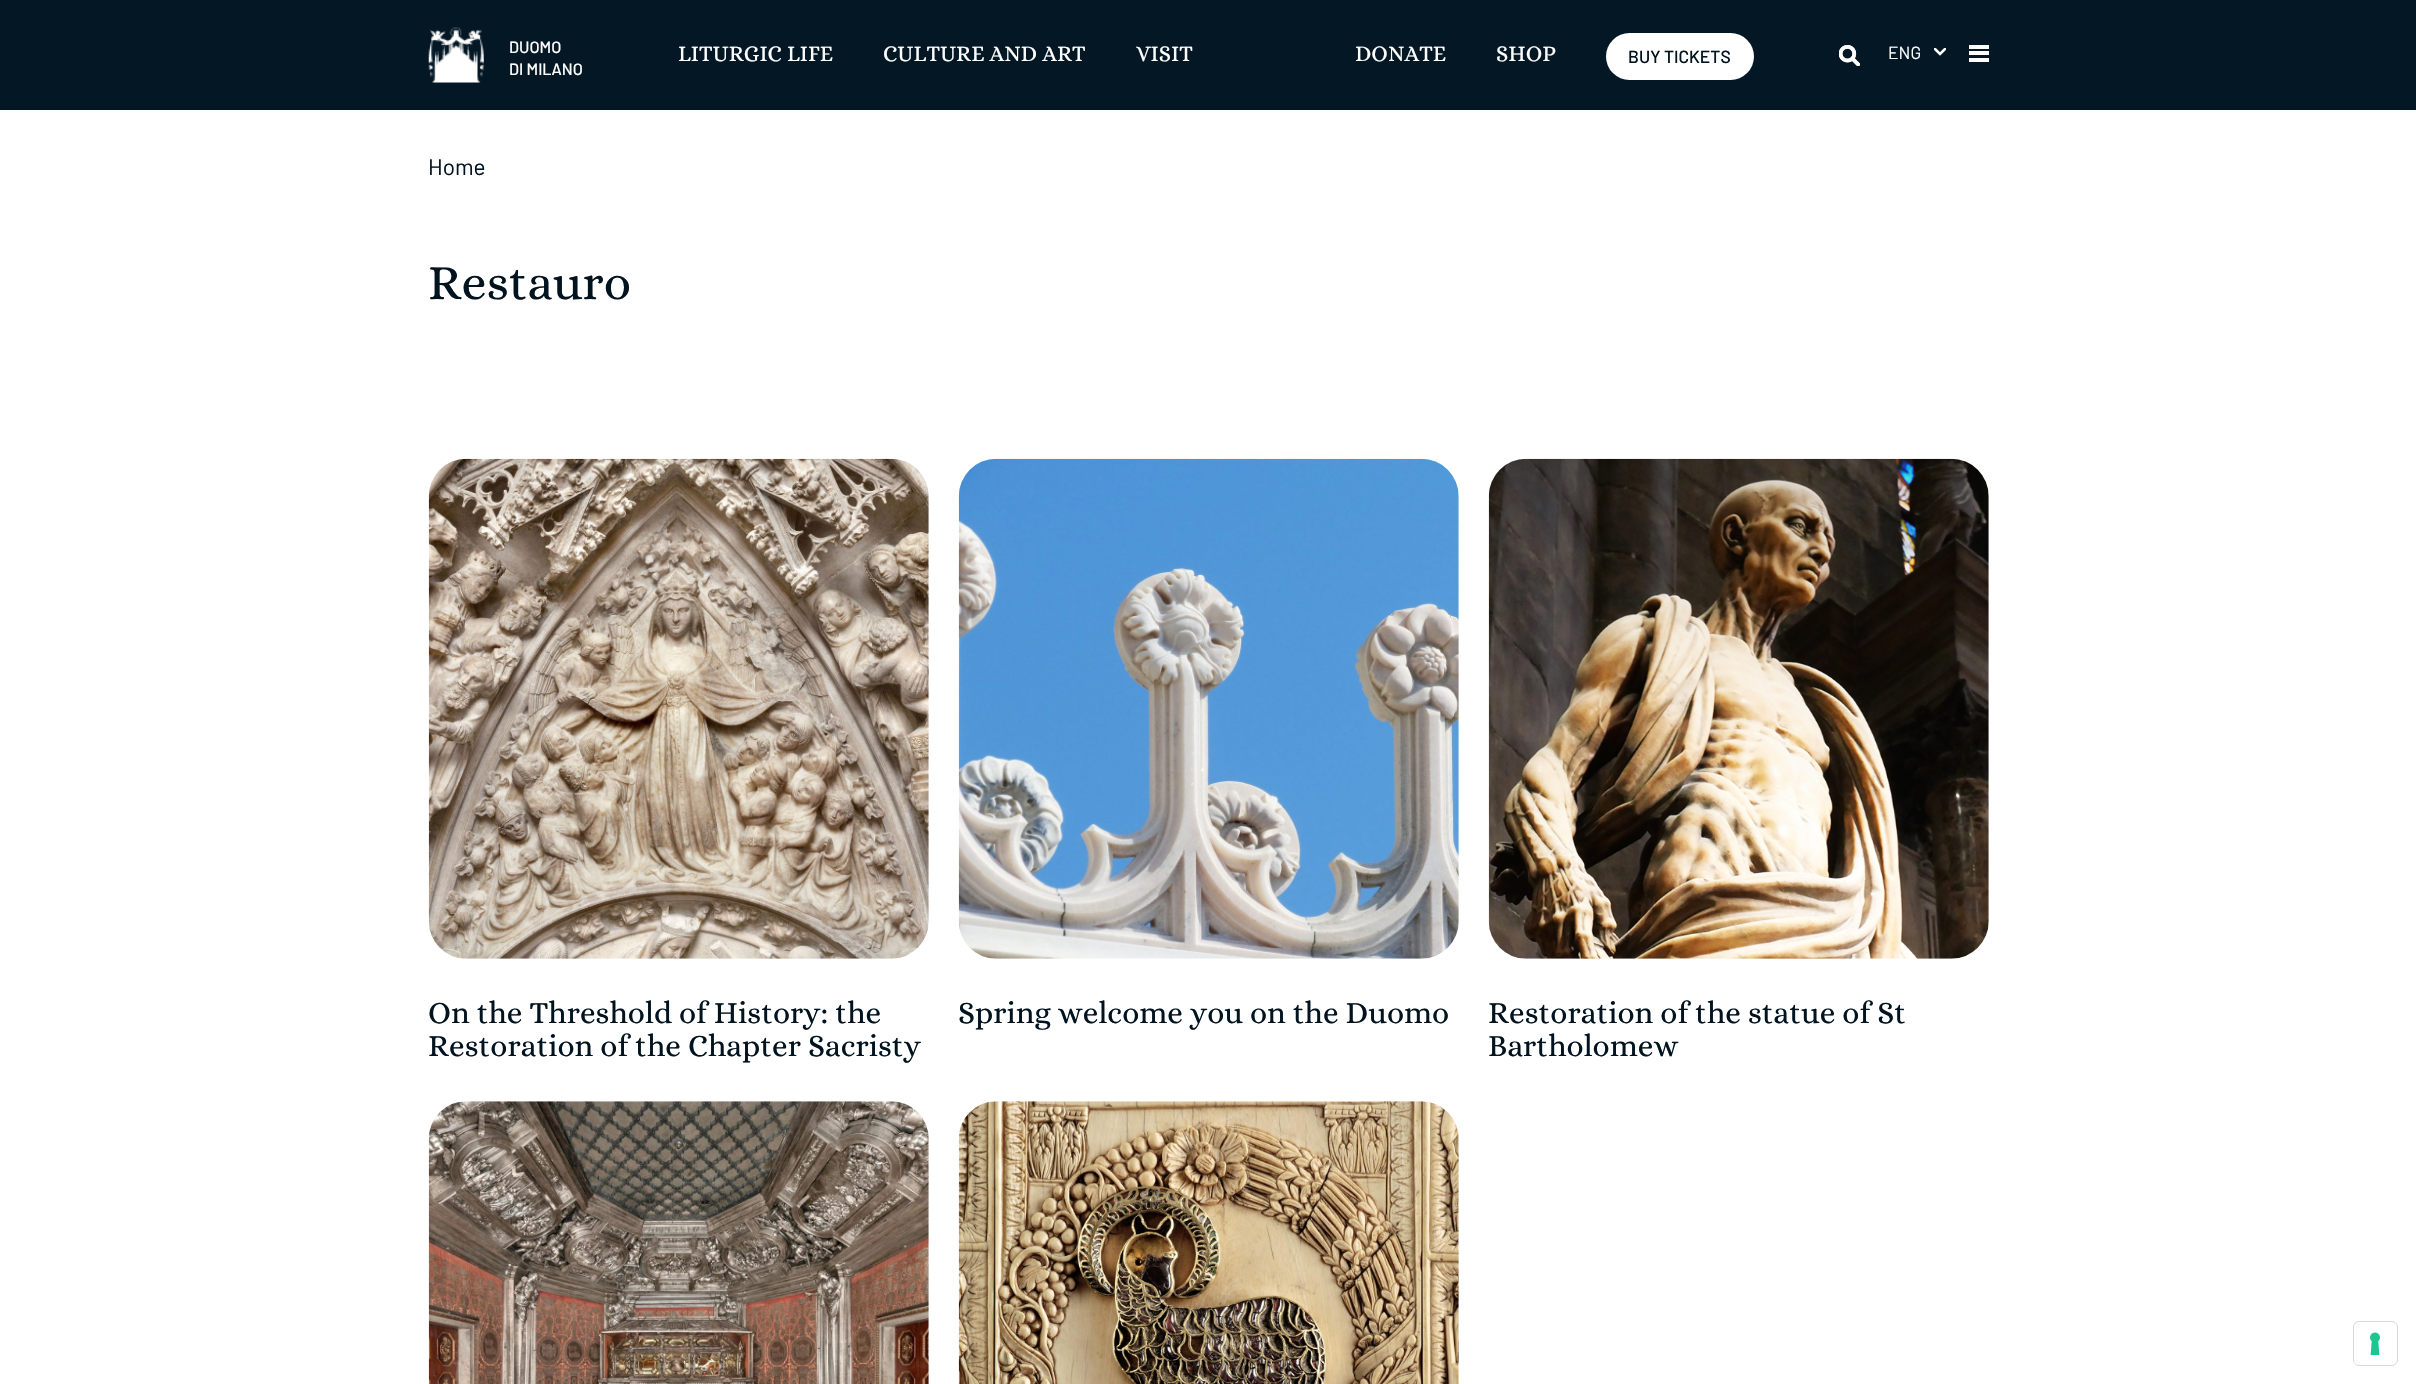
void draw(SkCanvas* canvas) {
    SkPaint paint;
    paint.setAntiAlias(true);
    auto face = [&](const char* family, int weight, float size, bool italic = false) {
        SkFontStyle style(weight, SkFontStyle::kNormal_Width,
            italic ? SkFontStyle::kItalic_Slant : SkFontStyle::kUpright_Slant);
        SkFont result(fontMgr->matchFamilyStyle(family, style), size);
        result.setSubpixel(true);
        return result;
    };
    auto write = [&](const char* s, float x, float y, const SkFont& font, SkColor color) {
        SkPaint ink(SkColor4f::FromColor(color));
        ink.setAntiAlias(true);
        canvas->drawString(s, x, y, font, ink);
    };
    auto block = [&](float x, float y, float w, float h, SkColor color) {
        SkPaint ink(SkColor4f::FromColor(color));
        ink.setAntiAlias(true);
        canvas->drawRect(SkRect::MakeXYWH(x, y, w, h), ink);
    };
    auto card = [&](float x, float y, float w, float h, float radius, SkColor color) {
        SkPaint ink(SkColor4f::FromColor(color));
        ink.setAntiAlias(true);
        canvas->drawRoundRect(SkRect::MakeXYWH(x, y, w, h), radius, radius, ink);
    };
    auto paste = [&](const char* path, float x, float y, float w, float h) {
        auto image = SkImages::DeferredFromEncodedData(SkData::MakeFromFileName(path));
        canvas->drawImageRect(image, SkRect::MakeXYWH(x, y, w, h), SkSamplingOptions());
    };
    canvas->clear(SK_ColorWHITE);
    block(0, 0, 2416, 110, SkColorSetRGB(3, 23, 36));
    paste("pic1.png", 428, 27, 56, 56);
    auto kFont1 = face("Barlow", 500, 16.25f);
    write("DUOMO", 509, 53, kFont1, SK_ColorWHITE);
    write("DI MILANO", 509, 75, kFont1, SK_ColorWHITE);
    auto kFont2 = face("Alice", 400, 22.5f);
    write("LITURGIC LIFE", 678, 61, kFont2, SK_ColorWHITE);
    write("CULTURE AND ART", 883, 61, kFont2, SK_ColorWHITE);
    write("VISIT", 1136, 61, kFont2, SK_ColorWHITE);
    write("DONATE", 1355, 61, kFont2, SK_ColorWHITE);
    write("SHOP", 1496, 61, kFont2, SK_ColorWHITE);
    card(1606, 33, 148, 47, 23.5f, SK_ColorWHITE);
    auto kFont3 = face("Barlow", 500, 17.5f);
    write("BUY TICKETS", 1628, 63, kFont3, SkColorSetRGB(1, 19, 31));
    paste("pic2.png", 1839, 45, 21, 21);
    paste("pic3.png", 1839, 45, 21, 21);
    auto kFont4 = face("Barlow", 400, 17.5f);
    write("ENG", 1888, 59, kFont4, SK_ColorWHITE);
    canvas->save();
    canvas->clipRect(SkRect::MakeXYWH(1934, 48, 12, 8));
    paint.setStyle(SkPaint::kStroke_Style);
    paint.setStrokeWidth(2.5f);
    paint.setStrokeCap(SkPaint::kRound_Cap);
    paint.setColor(SK_ColorWHITE);
    canvas->drawPath(SkPathBuilder().moveTo(1935, 49).lineTo(1940, 54).lineTo(1945, 49).detach(), paint);
    canvas->restore();
    block(1969, 45, 20, 4, SK_ColorWHITE);
    block(1969, 51, 20, 4, SK_ColorWHITE);
    block(1969, 58, 20, 4, SK_ColorWHITE);
    auto kFont5 = face("Barlow", 400, 22.5f);
    write("Home", 428, 175, kFont5, SkColorSetRGB(1, 19, 31));
    auto kFont6 = face("Alice", 400, 50);
    write("Restauro", 428, 299, kFont6, SkColorSetRGB(1, 19, 31));
    paste("pic4.png", 428, 458, 501, 501);
    auto kFont7 = face("Alice", 400, 31.25f);
    write("On the Threshold of History: the", 428, 1023, kFont7, SkColorSetRGB(1, 19, 31));
    write("Restoration of the Chapter Sacristy", 428, 1056, kFont7, SkColorSetRGB(1, 19, 31));
    paste("pic5.png", 958, 458, 501, 501);
    write("Spring welcome you on the Duomo", 958, 1023, kFont7, SkColorSetRGB(1, 19, 31));
    paste("pic6.png", 1488, 458, 501, 501);
    write("Restoration of the statue of St", 1488, 1023, kFont7, SkColorSetRGB(1, 19, 31));
    write("Bartholomew", 1488, 1056, kFont7, SkColorSetRGB(1, 19, 31));
    paste("pic7.png", 428, 1101, 501, 283);
    paste("pic8.png", 958, 1101, 501, 283);
    paint.setStrokeWidth(1);
    paint.setStrokeCap(SkPaint::kButt_Cap);
    paint.setColor(SkColorSetRGB(217, 217, 217));
    canvas->drawRoundRect(SkRect::MakeXYWH(2353.5f, 1321.5f, 44, 44), 5.5f, 5.5f, paint);
    card(2354, 1323, 42, 42, 5, SK_ColorWHITE);
    paste("pic9.png", 2370, 1332, 10, 23);
}
